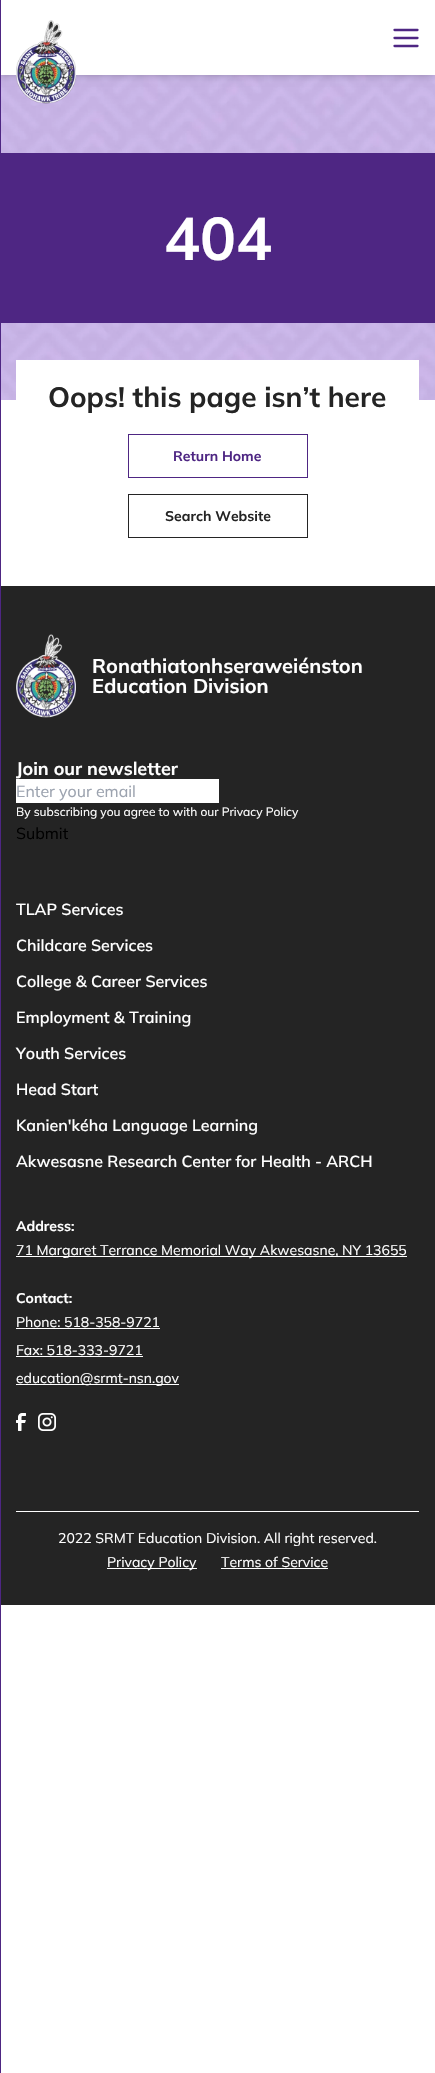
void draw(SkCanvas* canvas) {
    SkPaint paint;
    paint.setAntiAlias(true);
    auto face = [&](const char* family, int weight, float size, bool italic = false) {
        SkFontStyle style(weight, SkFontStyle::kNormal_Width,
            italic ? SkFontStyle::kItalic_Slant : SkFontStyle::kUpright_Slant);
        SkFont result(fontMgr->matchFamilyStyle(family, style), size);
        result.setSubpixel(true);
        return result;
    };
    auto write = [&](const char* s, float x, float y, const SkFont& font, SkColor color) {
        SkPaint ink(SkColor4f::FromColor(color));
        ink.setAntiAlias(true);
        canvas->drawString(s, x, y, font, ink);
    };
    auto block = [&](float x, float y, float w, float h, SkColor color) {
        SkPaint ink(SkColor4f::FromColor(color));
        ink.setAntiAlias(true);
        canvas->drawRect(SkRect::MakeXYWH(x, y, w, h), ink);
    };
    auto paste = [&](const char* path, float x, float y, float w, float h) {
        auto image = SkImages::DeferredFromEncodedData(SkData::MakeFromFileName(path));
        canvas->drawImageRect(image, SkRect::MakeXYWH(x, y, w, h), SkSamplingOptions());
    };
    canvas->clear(SK_ColorWHITE);
    paste("pic2.png", 1, 75, 434, 325);
    paint.setColor(SkColorSetARGB(26, 0, 0, 0));
    paint.setMaskFilter(SkMaskFilter::MakeBlur(kNormal_SkBlurStyle, 2));
    canvas->drawRect(SkRect::MakeXYWH(2, 4, 431, 71), paint);
    paint.setMaskFilter(nullptr);
    paint.setMaskFilter(SkMaskFilter::MakeBlur(kNormal_SkBlurStyle, 3));
    canvas->drawRect(SkRect::MakeXYWH(1, 5, 433, 73), paint);
    paint.setMaskFilter(nullptr);
    block(1, 0, 434, 75, SK_ColorWHITE);
    paste("pic1.png", 16, 20, 60, 84);
    paint.setStyle(SkPaint::kStroke_Style);
    paint.setStrokeWidth(2.3f);
    paint.setStrokeCap(SkPaint::kRound_Cap);
    paint.setColor(SkColorSetRGB(78, 38, 131));
    canvas->drawPath(SkPathBuilder().moveTo(394.5f, 30).lineTo(417.5f, 30).moveTo(394.5f, 38).lineTo(417.5f, 38).moveTo(394.5f, 46).lineTo(417.5f, 46).detach(), paint);
    block(0, 0, 1, 2073, SkColorSetRGB(78, 38, 131));
    block(1, 153, 434, 170, SkColorSetRGB(78, 38, 131));
    auto kFont1 = face("Mulish", 700, 60);
    write("404", 164, 260, kFont1, SK_ColorWHITE);
    block(16, 360, 403, 40, SK_ColorWHITE);
    auto kFont2 = face("Mulish", 700, 28);
    write("Oops! this page isn’t here", 48, 407, kFont2, SkColorSetRGB(36, 36, 36));
    paint.setStrokeWidth(1);
    paint.setStrokeCap(SkPaint::kButt_Cap);
    canvas->drawRect(SkRect::MakeXYWH(128.5f, 434.5f, 179, 43), paint);
    auto kFont3 = face("Mulish", 700, 14);
    write("Return Home", 173, 461, kFont3, SkColorSetRGB(78, 38, 131));
    paint.setColor(SkColorSetRGB(36, 36, 36));
    canvas->drawRect(SkRect::MakeXYWH(128.5f, 494.5f, 179, 43), paint);
    write("Search Website", 165, 521, kFont3, SkColorSetRGB(36, 36, 36));
    block(1, 586, 434, 1019, SkColorSetRGB(36, 36, 36));
    paste("pic3.png", 16, 634, 60, 84);
    auto kFont4 = face("Mulish", 700, 20);
    write("Ronathiatonhseraweiénston", 92, 673, kFont4, SK_ColorWHITE);
    write("Education Division", 92, 693, kFont4, SK_ColorWHITE);
    auto kFont5 = face("Mulish", 700, 18);
    write("Join our newsletter", 16, 775, kFont5, SK_ColorWHITE);
    block(16, 779, 203, 24, SK_ColorWHITE);
    auto kFont6 = face("Mulish", 400, 16);
    write("Enter your email", 16, 797, kFont6, SkColorSetRGB(156, 163, 175));
    auto kFont7 = face("Mulish", 400, 12);
    write("By subscribing you agree to with our Privacy Policy", 16, 816, kFont7, SK_ColorWHITE);
    write("Submit", 16, 839, kFont6, SK_ColorBLACK);
    auto kFont8 = face("Mulish", 600, 16);
    write("TLAP Services", 16, 915, kFont8, SK_ColorWHITE);
    write("Childcare Services", 16, 951, kFont8, SK_ColorWHITE);
    write("College & Career Services", 16, 987, kFont8, SK_ColorWHITE);
    write("Employment & Training", 16, 1023, kFont8, SK_ColorWHITE);
    write("Youth Services", 16, 1059, kFont8, SK_ColorWHITE);
    write("Head Start", 16, 1095, kFont8, SK_ColorWHITE);
    write("Kanien'kéha Language Learning", 16, 1131, kFont8, SK_ColorWHITE);
    write("Akwesasne Research Center for Health - ARCH", 16, 1167, kFont8, SK_ColorWHITE);
    write("Address:", 16, 1231, kFont3, SK_ColorWHITE);
    block(16, 1256, 391, 1, SK_ColorWHITE);
    auto kFont9 = face("Mulish", 400, 14);
    write("71 Margaret Terrance Memorial Way Akwesasne, NY 13655", 16, 1255, kFont9, SK_ColorWHITE);
    write("Contact:", 16, 1303, kFont3, SK_ColorWHITE);
    write("Phone: 518-358-9721", 16, 1327, kFont9, SK_ColorWHITE);
    block(16, 1328, 144, 1, SK_ColorWHITE);
    write("Fax: 518-333-9721", 16, 1355, kFont9, SK_ColorWHITE);
    block(16, 1356, 127, 1, SK_ColorWHITE);
    block(16, 1384, 163, 1, SK_ColorWHITE);
    write("education@srmt-nsn.gov", 16, 1383, kFont9, SK_ColorWHITE);
    paste("pic4.png", 16, 1413, 10, 18);
    paste("pic5.png", 38, 1413, 18, 18);
    block(16, 1511, 403, 1, SK_ColorWHITE);
    write("2022 SRMT Education Division. All right reserved.", 58, 1543, kFont9, SK_ColorWHITE);
    block(107, 1568, 90, 1, SK_ColorWHITE);
    write("Privacy Policy", 107, 1567, kFont9, SK_ColorWHITE);
    write("Terms of Service", 221, 1567, kFont9, SK_ColorWHITE);
    block(221, 1568, 107, 1, SK_ColorWHITE);
}
